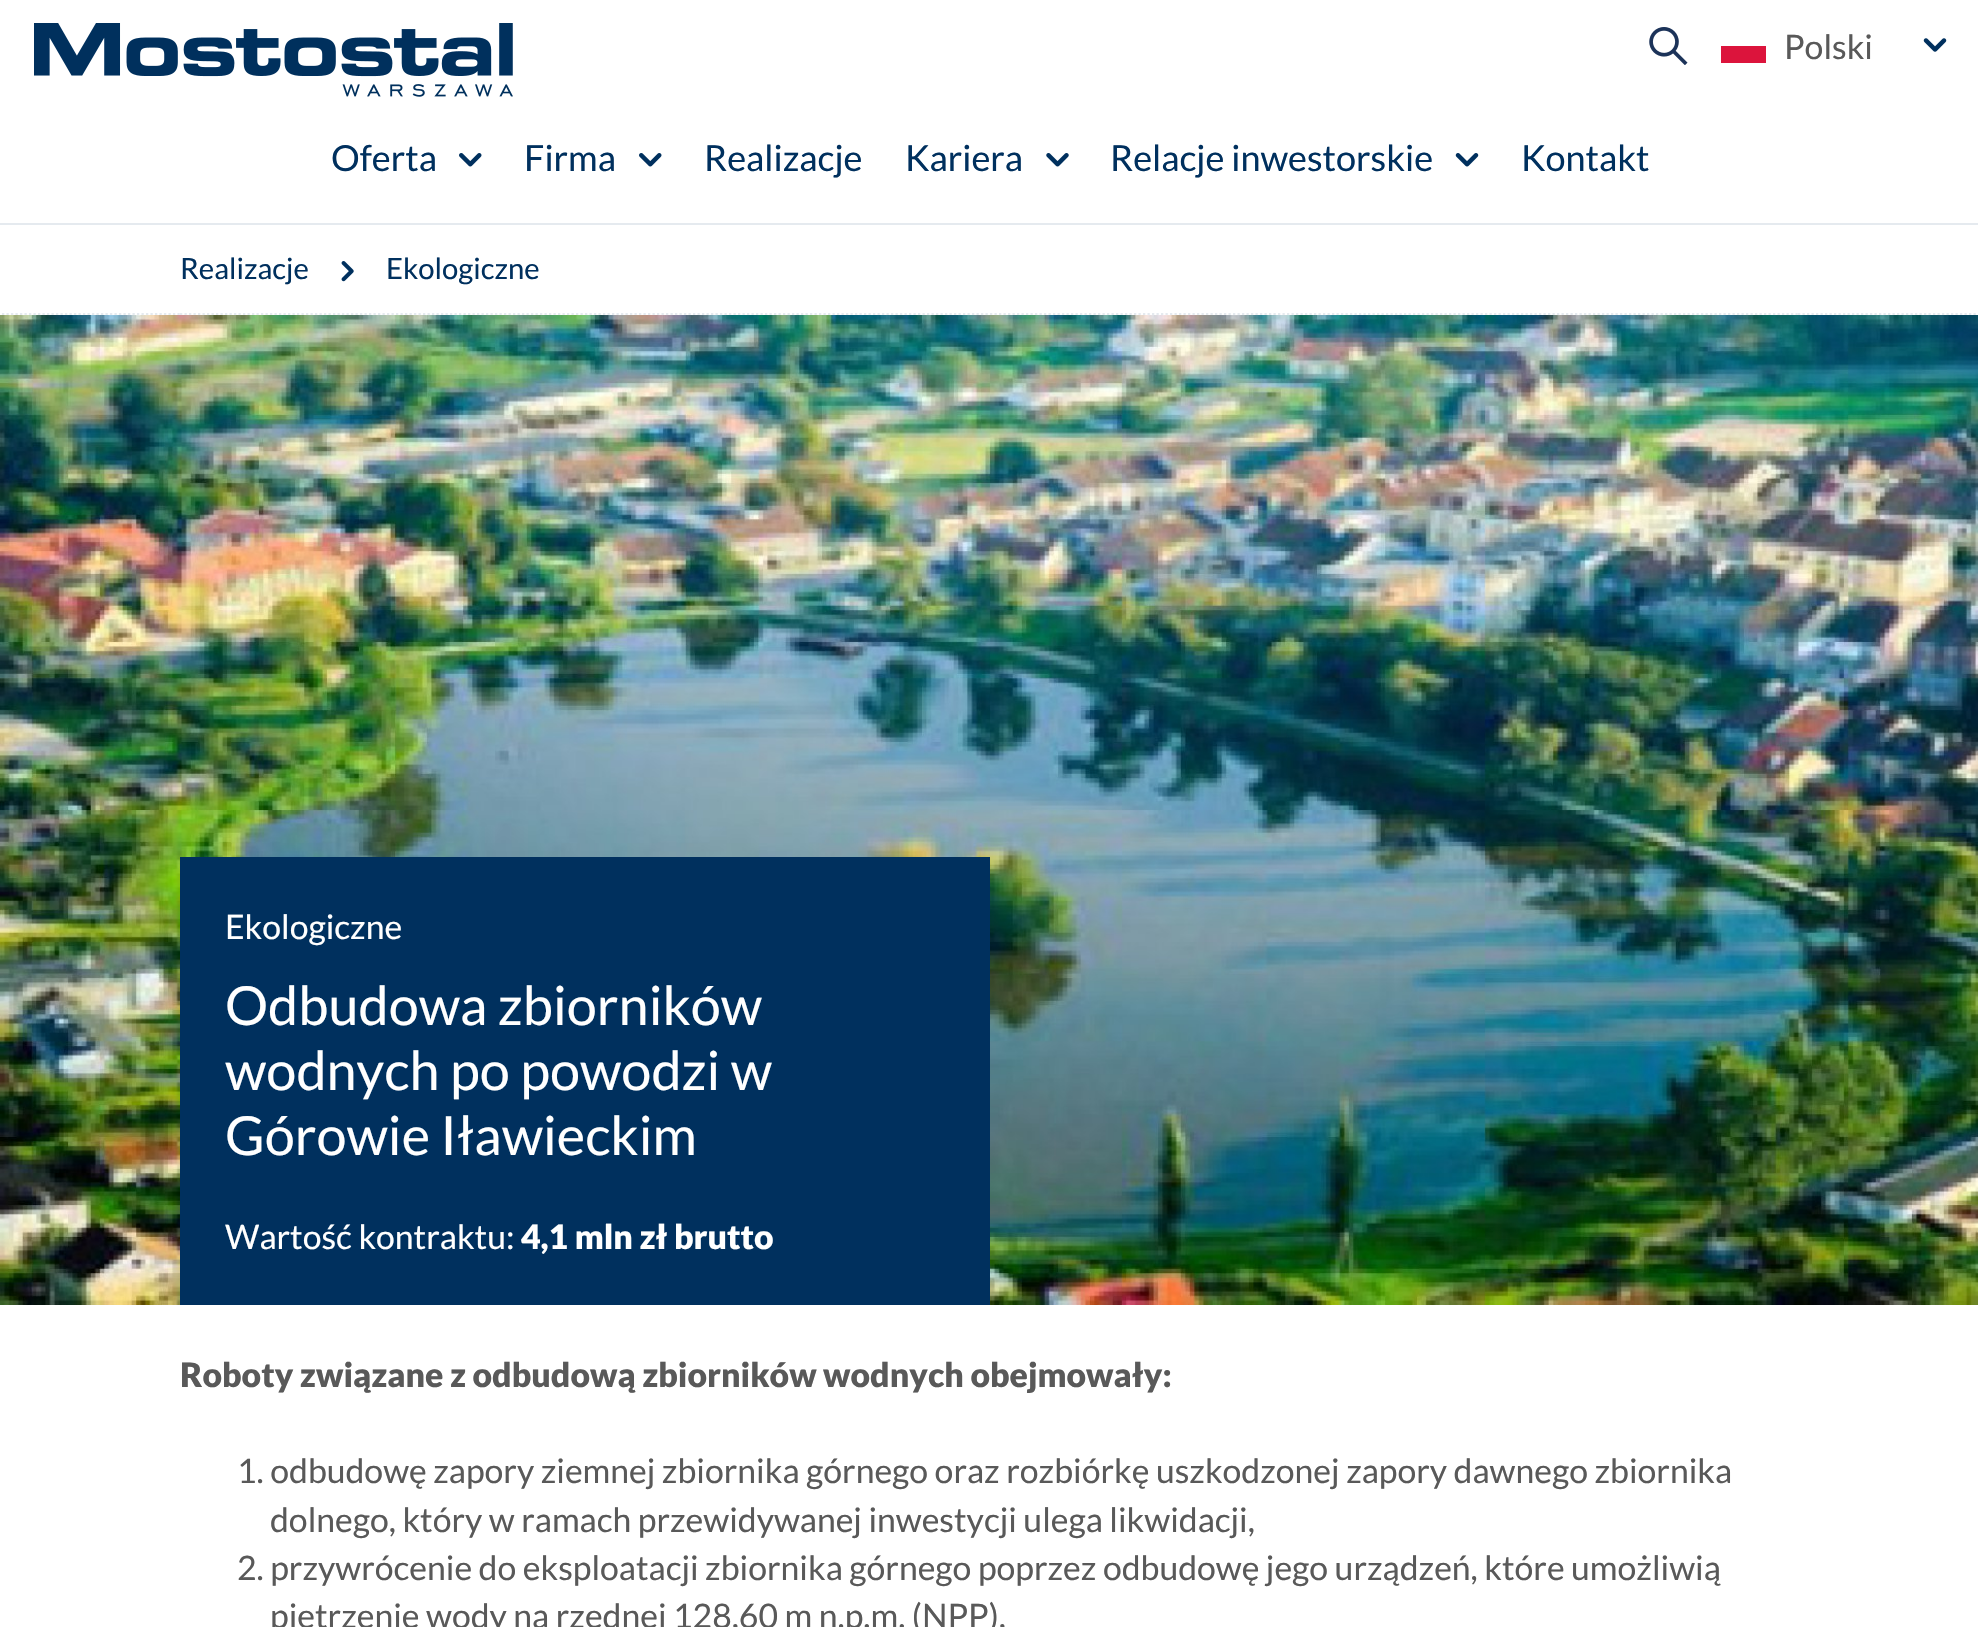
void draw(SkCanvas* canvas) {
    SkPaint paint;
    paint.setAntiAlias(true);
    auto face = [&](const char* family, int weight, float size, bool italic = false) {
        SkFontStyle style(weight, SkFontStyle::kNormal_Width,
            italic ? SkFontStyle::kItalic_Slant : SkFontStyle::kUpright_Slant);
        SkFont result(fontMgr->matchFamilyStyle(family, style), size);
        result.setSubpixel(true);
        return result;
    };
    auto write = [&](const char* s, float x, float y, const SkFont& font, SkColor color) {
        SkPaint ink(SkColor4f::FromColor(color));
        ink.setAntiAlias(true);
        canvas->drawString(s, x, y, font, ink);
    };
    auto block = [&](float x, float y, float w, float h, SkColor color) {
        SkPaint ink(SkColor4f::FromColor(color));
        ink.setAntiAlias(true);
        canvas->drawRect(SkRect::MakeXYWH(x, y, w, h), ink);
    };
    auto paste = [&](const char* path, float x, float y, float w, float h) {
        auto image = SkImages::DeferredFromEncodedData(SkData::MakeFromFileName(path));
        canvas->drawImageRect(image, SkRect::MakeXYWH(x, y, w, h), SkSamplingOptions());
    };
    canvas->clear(SK_ColorWHITE);
    paste("pic1.png", 34, 23, 479, 74);
    paste("pic2.png", 1649, 27, 39, 38);
    block(1721, 46, 45, 17, SkColorSetRGB(220, 20, 60));
    auto kFont1 = face("Lato", 400, 33.75f);
    write("Polski", 1784, 59, kFont1, SkColorSetRGB(89, 89, 89));
    paste("pic3.png", 1923, 38, 24, 14);
    auto kFont2 = face("Lato", 400, 36);
    write("Oferta", 331, 171, kFont2, SkColorSetRGB(0, 48, 94));
    paste("pic4.png", 459, 153, 23, 14);
    write("Firma", 524, 171, kFont2, SkColorSetRGB(0, 48, 94));
    paste("pic4.png", 639, 153, 23, 14);
    write("Realizacje", 704, 171, kFont2, SkColorSetRGB(0, 48, 94));
    write("Kariera", 905, 171, kFont2, SkColorSetRGB(0, 48, 94));
    paste("pic5.png", 1046, 153, 23, 14);
    write("Relacje inwestorskie", 1110, 171, kFont2, SkColorSetRGB(0, 48, 94));
    paste("pic6.png", 1455, 153, 24, 14);
    write("Kontakt", 1521, 171, kFont2, SkColorSetRGB(0, 48, 94));
    block(0, 223, 1978, 2, SkColorSetRGB(229, 234, 239));
    paint.setStyle(SkPaint::kStroke_Style);
    paint.setStrokeWidth(2.2f);
    paint.setColor(SkColorSetRGB(229, 234, 239));
    paint.setPathEffect(SkDashPathEffect::Make({{2.25f, 2.25f}}, 0));
    canvas->drawPath(SkPathBuilder().moveTo(180, 314).lineTo(1800, 314).detach(), paint);
    paint.setPathEffect(nullptr);
    auto kFont3 = face("Lato", 400, 29.25f);
    write("Realizacje", 180, 279, kFont3, SkColorSetRGB(0, 48, 94));
    paste("pic7.png", 341, 261, 13, 21);
    write("Ekologiczne", 386, 279, kFont3, SkColorSetRGB(0, 48, 94));
    paint.setPathEffect(SkDashPathEffect::Make({{2.25f, 2.25f}}, 0));
    canvas->drawPath(SkPathBuilder().moveTo(-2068, 314).lineTo(182, 314).detach(), paint);
    paint.setPathEffect(nullptr);
    paint.setPathEffect(SkDashPathEffect::Make({{2.25f, 2.25f}}, 0));
    canvas->drawPath(SkPathBuilder().moveTo(1798, 314).lineTo(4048, 314).detach(), paint);
    paint.setPathEffect(nullptr);
    paste("pic8.png", 0, 315, 1978, 990);
    block(180, 857, 810, 448, SkColorSetRGB(0, 48, 94));
    write("Ekologiczne", 225, 939, kFont1, SK_ColorWHITE);
    auto kFont4 = face("Lato", 400, 54);
    write("Odbudowa zbiorników", 225, 1025, kFont4, SK_ColorWHITE);
    write("wodnych po powodzi w", 225, 1090, kFont4, SK_ColorWHITE);
    write("Górowie Iławieckim", 225, 1155, kFont4, SK_ColorWHITE);
    write("Wartość kontraktu:", 225, 1249, kFont1, SK_ColorWHITE);
    auto kFont5 = face("Lato", 900, 33.75f);
    write("4,1 mln zł brutto", 521, 1249, kFont5, SK_ColorWHITE);
    write("Roboty związane z odbudową zbiorników wodnych obejmowały:", 180, 1387, kFont5, SkColorSetRGB(89, 89, 89));
    write("1. odbudowę zapory ziemnej zbiornika górnego oraz rozbiórkę uszkodzonej zapory dawnego zbiornika", 237, 1483, kFont1, SkColorSetRGB(89, 89, 89));
    write("dolnego, który w ramach przewidywanej inwestycji ulega likwidacji,", 270, 1532, kFont1, SkColorSetRGB(89, 89, 89));
    write("2. przywrócenie do eksploatacji zbiornika górnego poprzez odbudowę jego urządzeń, które umożliwią", 237, 1580, kFont1, SkColorSetRGB(89, 89, 89));
    write("piętrzenie wody na rzędnej 128,60 m n.p.m. (NPP),", 270, 1628, kFont1, SkColorSetRGB(89, 89, 89));
}
